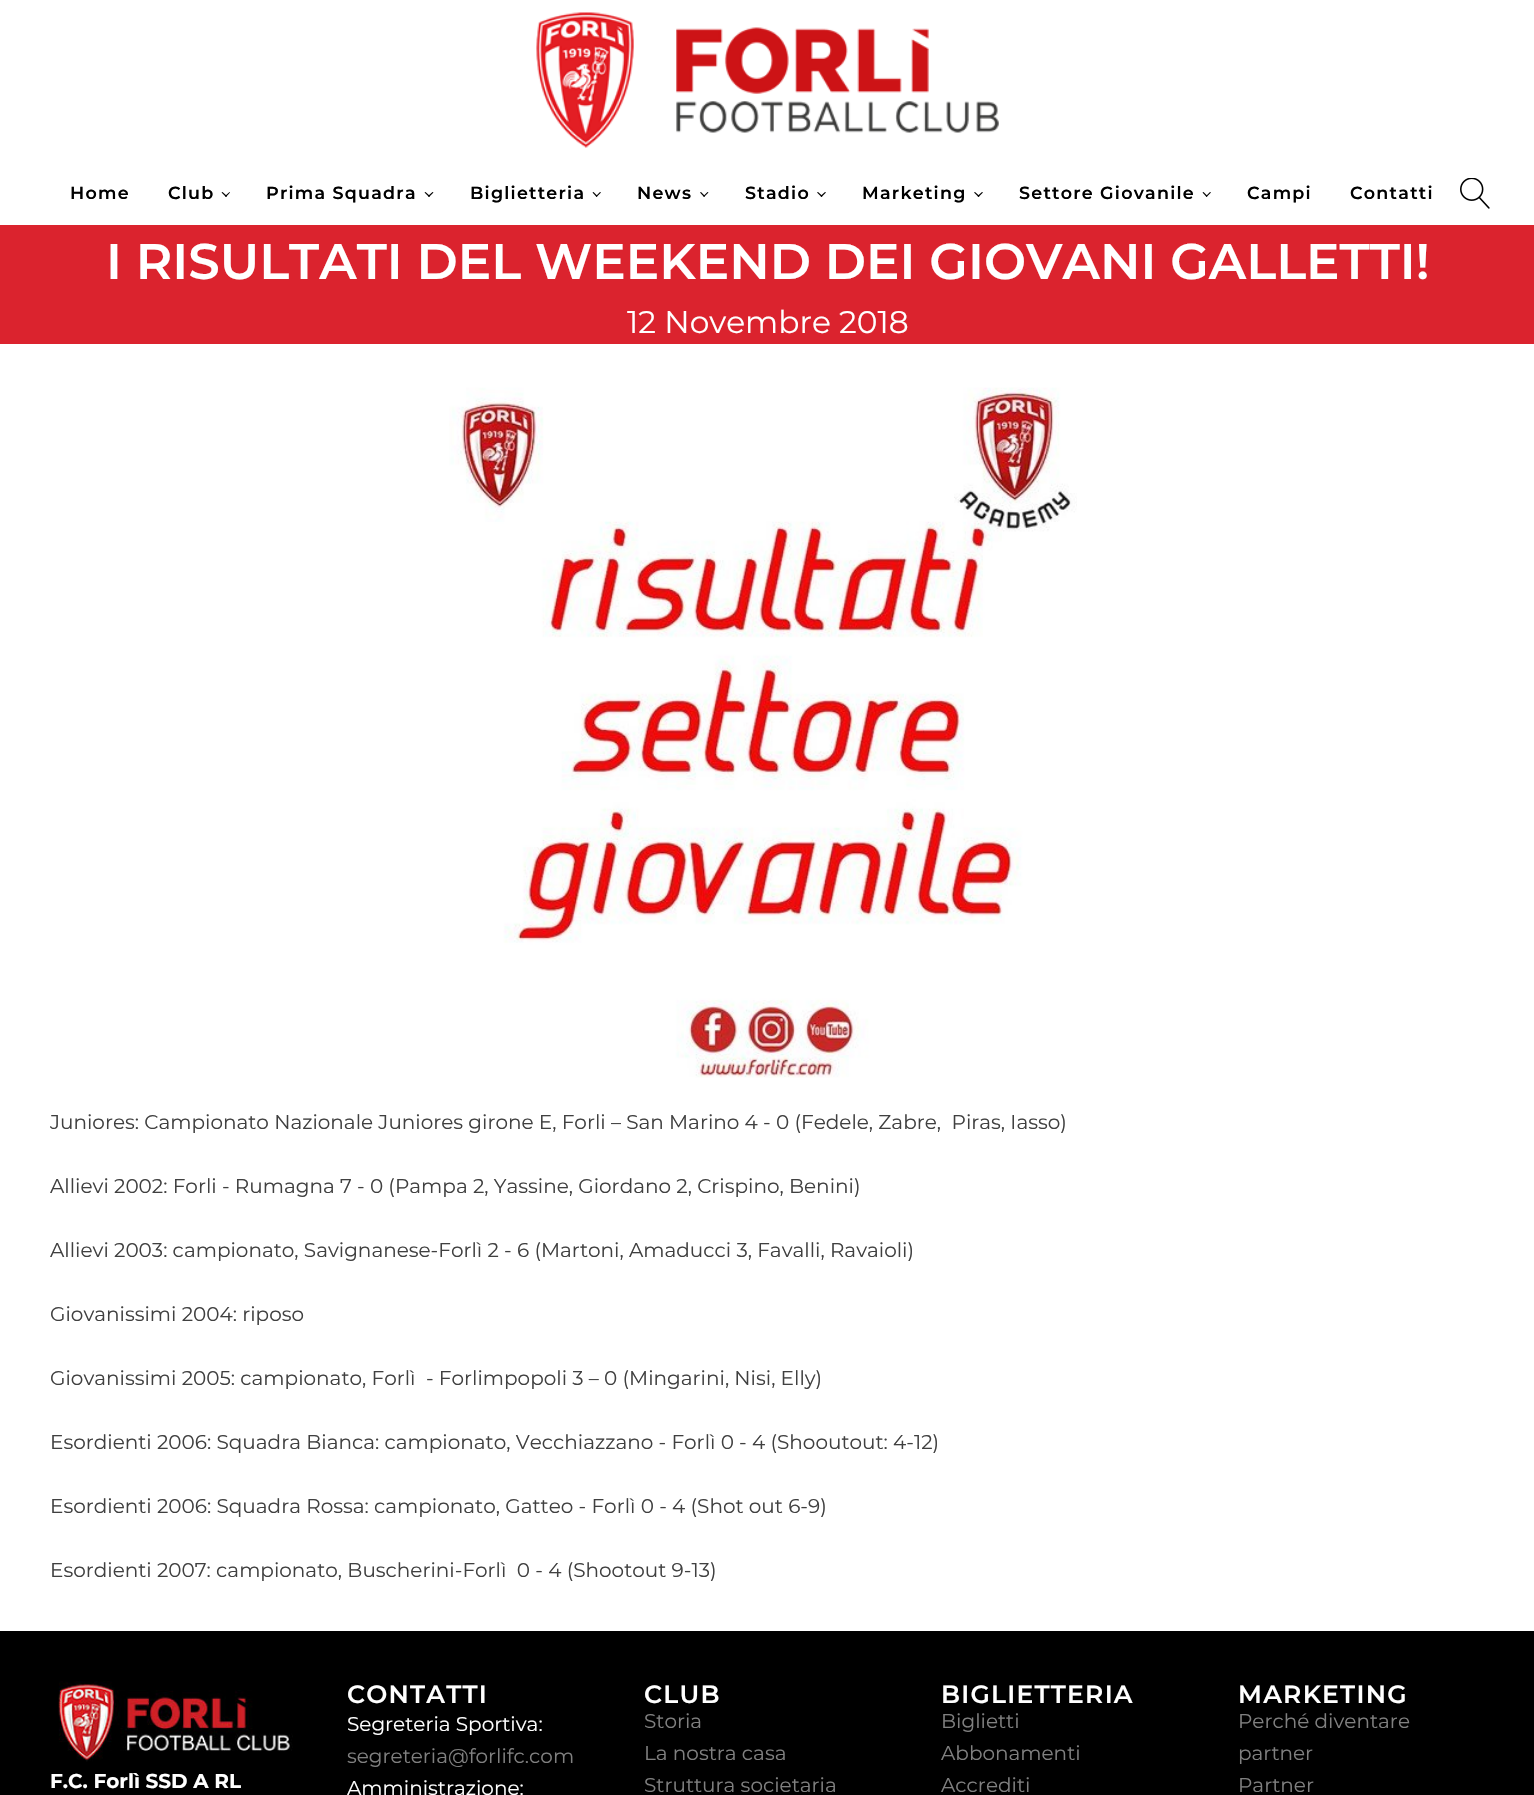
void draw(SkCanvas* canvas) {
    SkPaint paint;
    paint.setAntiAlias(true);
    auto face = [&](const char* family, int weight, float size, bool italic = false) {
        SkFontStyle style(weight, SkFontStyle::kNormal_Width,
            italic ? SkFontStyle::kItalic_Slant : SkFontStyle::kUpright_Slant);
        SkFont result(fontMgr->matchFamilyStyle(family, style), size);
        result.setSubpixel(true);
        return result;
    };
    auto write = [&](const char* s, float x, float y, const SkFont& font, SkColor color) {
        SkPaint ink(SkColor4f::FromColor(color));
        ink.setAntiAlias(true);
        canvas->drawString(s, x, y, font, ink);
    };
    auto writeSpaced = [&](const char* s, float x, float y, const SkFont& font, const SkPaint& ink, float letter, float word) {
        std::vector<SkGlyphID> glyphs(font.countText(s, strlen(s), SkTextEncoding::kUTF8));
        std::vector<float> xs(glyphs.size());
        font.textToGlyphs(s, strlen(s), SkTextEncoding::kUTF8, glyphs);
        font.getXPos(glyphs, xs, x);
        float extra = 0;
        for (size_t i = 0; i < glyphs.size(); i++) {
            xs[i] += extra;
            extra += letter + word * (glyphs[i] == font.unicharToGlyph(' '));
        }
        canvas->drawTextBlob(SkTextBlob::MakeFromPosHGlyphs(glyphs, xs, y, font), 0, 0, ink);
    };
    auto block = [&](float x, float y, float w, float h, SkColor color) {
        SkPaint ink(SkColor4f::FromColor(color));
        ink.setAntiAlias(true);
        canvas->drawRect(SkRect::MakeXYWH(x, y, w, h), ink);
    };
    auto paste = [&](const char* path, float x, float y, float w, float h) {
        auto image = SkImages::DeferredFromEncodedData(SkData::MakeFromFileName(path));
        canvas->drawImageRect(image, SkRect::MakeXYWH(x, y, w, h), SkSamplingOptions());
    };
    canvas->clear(SK_ColorWHITE);
    paste("pic1.png", 536, 12, 463, 136);
    auto kFont1 = face("Montserrat", 600, 17.5f);
    paint.setColor(SK_ColorBLACK);
    writeSpaced("Home", 70, 199, kFont1, paint, 1.25f, 0);
    writeSpaced("Club", 168, 199, kFont1, paint, 1.25f, 0);
    canvas->drawPath(SkPathBuilder().moveTo(230, 192.5f).lineTo(226, 197).lineTo(225, 196).lineTo(229.5f, 192).close().detach(), paint);
    canvas->drawPath(SkPathBuilder().moveTo(227, 196).lineTo(226, 197).lineTo(221.5f, 192.5f).lineTo(222.5f, 192).close().detach(), paint);
    writeSpaced("Prima Squadra", 266, 199, kFont1, paint, 1.25f, 0);
    canvas->drawPath(SkPathBuilder().moveTo(433.5f, 192.5f).lineTo(429, 197).lineTo(428, 196).lineTo(432.5f, 192).close().detach(), paint);
    canvas->drawPath(SkPathBuilder().moveTo(430, 196).lineTo(429, 197).lineTo(424.5f, 192.5f).lineTo(425.5f, 192).close().detach(), paint);
    writeSpaced("Biglietteria", 470, 199, kFont1, paint, 1.25f, 0);
    canvas->drawPath(SkPathBuilder().moveTo(601, 192.5f).lineTo(596.5f, 197).lineTo(596, 196).lineTo(600, 192).close().detach(), paint);
    canvas->drawPath(SkPathBuilder().moveTo(597.5f, 196).lineTo(596.5f, 197).lineTo(592.5f, 192.5f).lineTo(593.5f, 192).close().detach(), paint);
    writeSpaced("News", 637, 199, kFont1, paint, 1.25f, 0);
    canvas->drawPath(SkPathBuilder().moveTo(708.5f, 192.5f).lineTo(704, 197).lineTo(703.5f, 196).lineTo(707.5f, 192).close().detach(), paint);
    canvas->drawPath(SkPathBuilder().moveTo(705, 196).lineTo(704, 197).lineTo(700, 192.5f).lineTo(701, 192).close().detach(), paint);
    writeSpaced("Stadio", 745, 199, kFont1, paint, 1.25f, 0);
    canvas->drawPath(SkPathBuilder().moveTo(826, 192.5f).lineTo(821.5f, 197).lineTo(820.5f, 196).lineTo(825, 192).close().detach(), paint);
    canvas->drawPath(SkPathBuilder().moveTo(822.5f, 196).lineTo(821.5f, 197).lineTo(817, 192.5f).lineTo(818, 192).close().detach(), paint);
    writeSpaced("Marketing", 862, 199, kFont1, paint, 1.25f, 0);
    canvas->drawPath(SkPathBuilder().moveTo(983, 192.5f).lineTo(978.5f, 197).lineTo(977.5f, 196).lineTo(982, 192).close().detach(), paint);
    canvas->drawPath(SkPathBuilder().moveTo(979.5f, 196).lineTo(978.5f, 197).lineTo(974, 192.5f).lineTo(975, 192).close().detach(), paint);
    writeSpaced("Settore Giovanile", 1019, 199, kFont1, paint, 1.25f, 0);
    canvas->drawPath(SkPathBuilder().moveTo(1211, 192.5f).lineTo(1206.5f, 197).lineTo(1206, 196).lineTo(1210, 192).close().detach(), paint);
    canvas->drawPath(SkPathBuilder().moveTo(1207.5f, 196).lineTo(1206.5f, 197).lineTo(1202.5f, 192.5f).lineTo(1203.5f, 192).close().detach(), paint);
    writeSpaced("Campi", 1247, 199, kFont1, paint, 1.25f, 0);
    writeSpaced("Contatti", 1350, 199, kFont1, paint, 1.25f, 0);
    paste("pic2.png", 1460, 178, 30, 31);
    block(0, 225, 1534, 119, SkColorSetRGB(219, 35, 46));
    auto kFont2 = face("Montserrat", 600, 50);
    write("I RISULTATI DEL WEEKEND DEI GIOVANI GALLETTI!", 106, 279, kFont2, SK_ColorWHITE);
    auto kFont3 = face("Montserrat", 400, 31.25f);
    write("12 Novembre 2018", 627, 333, kFont3, SK_ColorWHITE);
    paste("pic3.png", 449, 387, 628, 691);
    auto kFont4 = face("Montserrat", 400, 20);
    write("Juniores: Campionato Nazionale Juniores girone E, Forli – San Marino 4 - 0 (Fedele, Zabre,  Piras, Iasso)", 50, 1129, kFont4, SkColorSetRGB(64, 64, 64));
    write("Allievi 2002: Forli - Rumagna 7 - 0 (Pampa 2, Yassine, Giordano 2, Crispino, Benini)", 50, 1193, kFont4, SkColorSetRGB(64, 64, 64));
    write("Allievi 2003: campionato, Savignanese-Forlì 2 - 6 (Martoni, Amaducci 3, Favalli, Ravaioli)", 50, 1257, kFont4, SkColorSetRGB(64, 64, 64));
    write("Giovanissimi 2004: riposo", 50, 1321, kFont4, SkColorSetRGB(64, 64, 64));
    write("Giovanissimi 2005: campionato, Forlì  - Forlimpopoli 3 – 0 (Mingarini, Nisi, Elly)", 50, 1385, kFont4, SkColorSetRGB(64, 64, 64));
    write("Esordienti 2006: Squadra Bianca: campionato, Vecchiazzano - Forlì 0 - 4 (Shooutout: 4-12)", 50, 1449, kFont4, SkColorSetRGB(64, 64, 64));
    write("Esordienti 2006: Squadra Rossa: campionato, Gatteo - Forlì 0 - 4 (Shot out 6-9)", 50, 1513, kFont4, SkColorSetRGB(64, 64, 64));
    write("Esordienti 2007: campionato, Buscherini-Forlì  0 - 4 (Shootout 9-13)", 50, 1577, kFont4, SkColorSetRGB(64, 64, 64));
    block(0, 1631, 1534, 164, SK_ColorBLACK);
    paste("pic4.png", 58, 1681, 235, 81);
    auto kFont5 = face("Montserrat", 700, 20);
    write("F.C. Forlì SSD A RL", 50, 1788, kFont5, SK_ColorWHITE);
    auto kFont6 = face("Montserrat", 600, 25);
    paint.setColor(SK_ColorWHITE);
    writeSpaced("CONTATTI", 347, 1703, kFont6, paint, 1.25f, 0);
    write("Segreteria Sportiva:", 347, 1731, kFont4, SK_ColorWHITE);
    write("segreteria@forlifc.com", 347, 1763, kFont4, SkColorSetRGB(128, 128, 128));
    write("Amministrazione:", 347, 1795, kFont4, SK_ColorWHITE);
    writeSpaced("CLUB", 644, 1703, kFont6, paint, 1.25f, 0);
    write("Storia", 644, 1728, kFont4, SkColorSetRGB(128, 128, 128));
    write("La nostra casa", 644, 1760, kFont4, SkColorSetRGB(128, 128, 128));
    write("Struttura societaria", 644, 1792, kFont4, SkColorSetRGB(128, 128, 128));
    writeSpaced("BIGLIETTERIA", 941, 1703, kFont6, paint, 1.25f, 0);
    write("Biglietti", 941, 1728, kFont4, SkColorSetRGB(128, 128, 128));
    write("Abbonamenti", 941, 1760, kFont4, SkColorSetRGB(128, 128, 128));
    write("Accrediti", 941, 1792, kFont4, SkColorSetRGB(128, 128, 128));
    writeSpaced("MARKETING", 1238, 1703, kFont6, paint, 1.25f, 0);
    write("Perché diventare", 1238, 1728, kFont4, SkColorSetRGB(128, 128, 128));
    write("partner", 1238, 1760, kFont4, SkColorSetRGB(128, 128, 128));
    write("Partner", 1238, 1792, kFont4, SkColorSetRGB(128, 128, 128));
}
